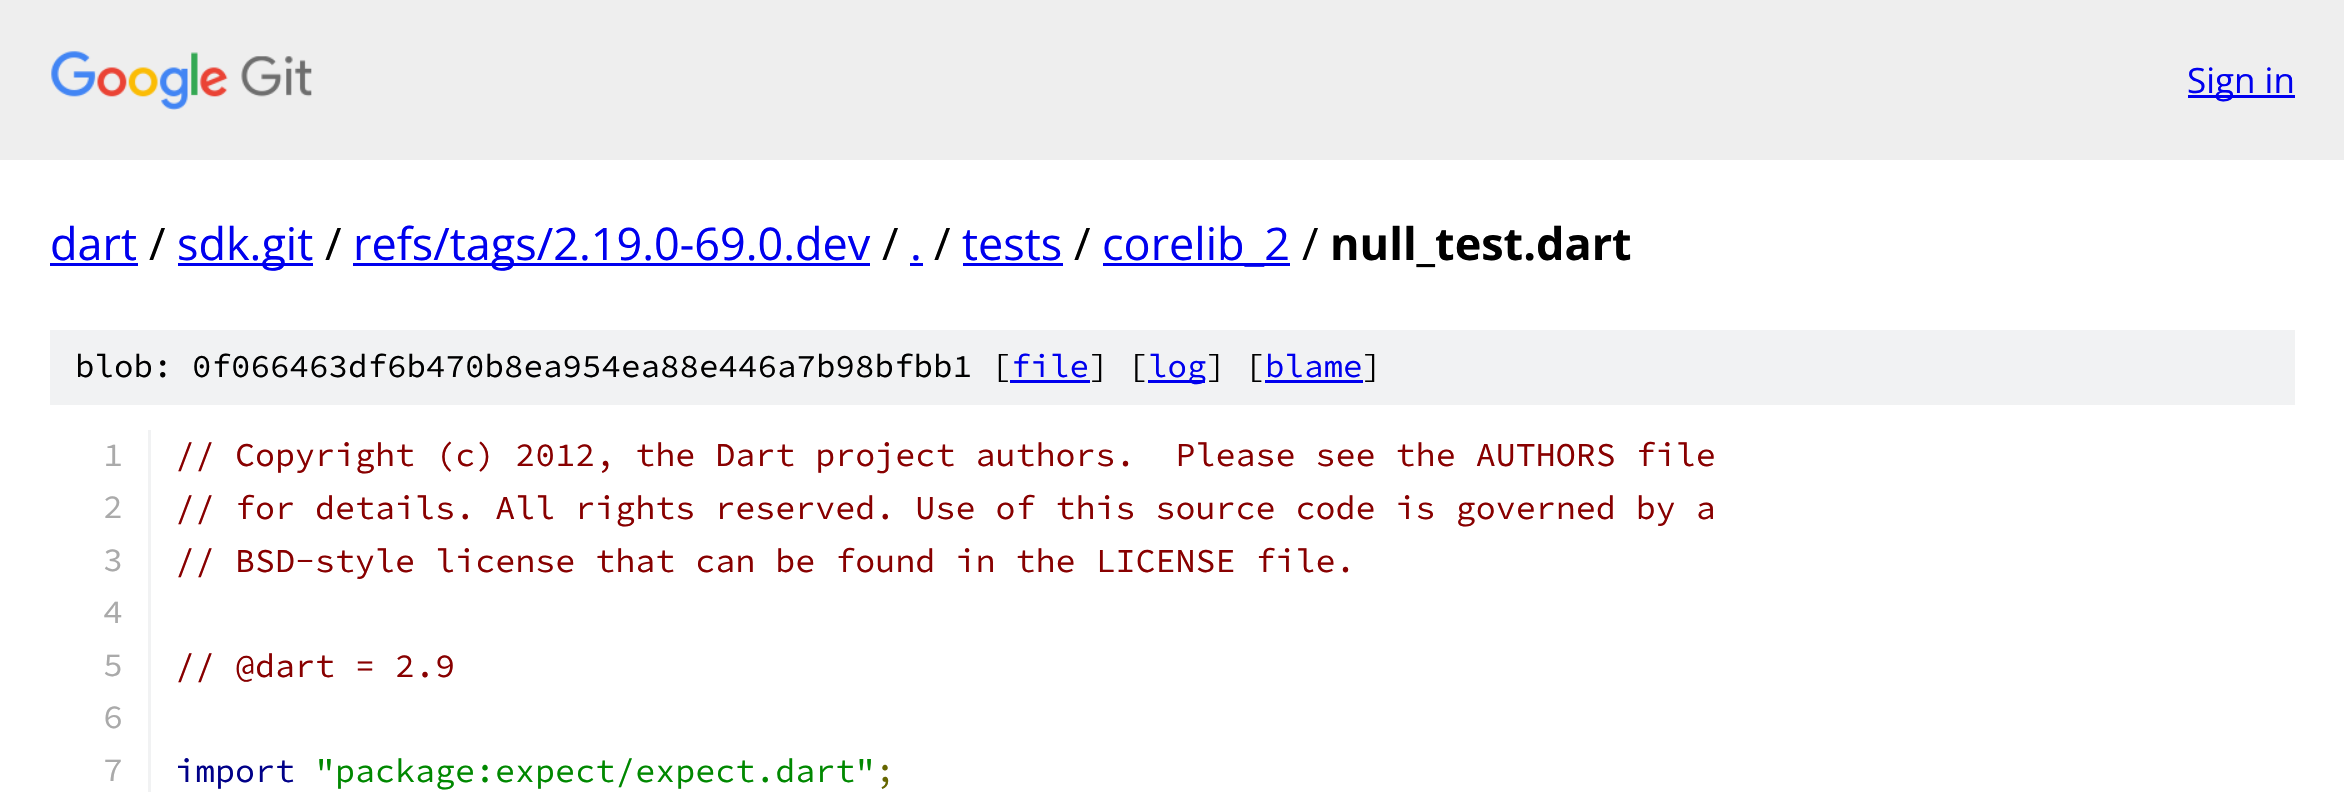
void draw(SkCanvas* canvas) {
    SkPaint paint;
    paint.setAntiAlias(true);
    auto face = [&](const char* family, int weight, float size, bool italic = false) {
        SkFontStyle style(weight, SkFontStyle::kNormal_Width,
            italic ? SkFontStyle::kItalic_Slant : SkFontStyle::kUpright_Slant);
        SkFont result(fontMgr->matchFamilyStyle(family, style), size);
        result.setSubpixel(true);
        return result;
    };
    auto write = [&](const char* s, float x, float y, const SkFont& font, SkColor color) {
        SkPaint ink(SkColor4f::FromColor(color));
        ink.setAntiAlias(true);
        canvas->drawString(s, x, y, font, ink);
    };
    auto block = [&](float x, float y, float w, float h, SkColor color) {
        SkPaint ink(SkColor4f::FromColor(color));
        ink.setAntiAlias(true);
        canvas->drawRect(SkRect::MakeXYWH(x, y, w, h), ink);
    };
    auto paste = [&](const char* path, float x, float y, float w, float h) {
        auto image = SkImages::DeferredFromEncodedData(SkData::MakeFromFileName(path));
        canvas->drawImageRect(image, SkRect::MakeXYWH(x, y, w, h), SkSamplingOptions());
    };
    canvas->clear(SK_ColorWHITE);
    block(0, 0, 2344, 160, SkColorSetRGB(238, 238, 238));
    paste("pic1.png", 51, 51, 261, 59);
    block(2188, 95, 107, 3, SkColorSetRGB(0, 0, 238));
    auto kFont1 = face("Open Sans", 400, 35);
    write("Sign in", 2187, 93, kFont1, SkColorSetRGB(0, 0, 238));
    auto kFont2 = face("Open Sans", 400, 45);
    write("dart", 50, 260, kFont2, SkColorSetRGB(0, 0, 238));
    block(50, 263, 88, 3, SkColorSetRGB(0, 0, 238));
    write("/", 149, 260, kFont2, SK_ColorBLACK);
    block(178, 263, 135, 3, SkColorSetRGB(0, 0, 238));
    write("sdk.git", 177, 260, kFont2, SkColorSetRGB(0, 0, 238));
    write("/", 325, 260, kFont2, SK_ColorBLACK);
    block(353, 263, 517, 3, SkColorSetRGB(0, 0, 238));
    write("refs/tags/2.19.0-69.0.dev", 353, 260, kFont2, SkColorSetRGB(0, 0, 238));
    write("/", 882, 260, kFont2, SK_ColorBLACK);
    write(".", 910, 260, kFont2, SkColorSetRGB(0, 0, 238));
    block(910, 263, 13, 3, SkColorSetRGB(0, 0, 238));
    write("/", 934, 260, kFont2, SK_ColorBLACK);
    write("tests", 962, 260, kFont2, SkColorSetRGB(0, 0, 238));
    block(963, 263, 100, 3, SkColorSetRGB(0, 0, 238));
    write("/", 1074, 260, kFont2, SK_ColorBLACK);
    block(1103, 263, 187, 3, SkColorSetRGB(0, 0, 238));
    write("corelib_2", 1102, 260, kFont2, SkColorSetRGB(0, 0, 238));
    write("/", 1302, 260, kFont2, SK_ColorBLACK);
    auto kFont3 = face("Open Sans", 700, 45);
    write("null_test.dart", 1330, 260, kFont3, SK_ColorBLACK);
    block(50, 330, 2245, 75, SkColorSetRGB(241, 242, 243));
    auto kFont4 = face("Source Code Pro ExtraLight", 200, 32.5f);
    write("blob: 0f066463df6b470b8ea954ea88e446a7b98bfbb1 [", 75, 377, kFont4, SK_ColorBLACK);
    write("file", 1011, 377, kFont4, SkColorSetRGB(0, 0, 238));
    block(1010, 380, 80, 3, SkColorSetRGB(0, 0, 238));
    write("] [", 1089, 377, kFont4, SK_ColorBLACK);
    block(1148, 380, 57, 3, SkColorSetRGB(0, 0, 238));
    write("log", 1148, 377, kFont4, SkColorSetRGB(0, 0, 238));
    write("] [", 1206, 377, kFont4, SK_ColorBLACK);
    write("blame", 1265, 377, kFont4, SkColorSetRGB(0, 0, 238));
    block(1265, 380, 98, 3, SkColorSetRGB(0, 0, 238));
    write("]", 1362, 377, kFont4, SK_ColorBLACK);
    block(148, 430, 3, 362, SkColorSetRGB(241, 242, 243));
    auto kFont5 = face("Source Code Pro ExtraLight", 200, 33.35f);
    write("1", 103, 466, kFont5, SkColorSetRGB(170, 170, 170));
    write("// Copyright (c) 2012, the Dart project authors.  Please see the AUTHORS file", 175, 466, kFont5, SkColorSetRGB(136, 0, 0));
    write("2", 103, 518, kFont5, SkColorSetRGB(170, 170, 170));
    write("// for details. All rights reserved. Use of this source code is governed by a", 175, 519, kFont5, SkColorSetRGB(136, 0, 0));
    write("3", 103, 571, kFont5, SkColorSetRGB(170, 170, 170));
    write("// BSD-style license that can be found in the LICENSE file.", 175, 572, kFont5, SkColorSetRGB(136, 0, 0));
    write("4", 103, 623, kFont5, SkColorSetRGB(170, 170, 170));
    write("5", 103, 676, kFont5, SkColorSetRGB(170, 170, 170));
    write("// @dart = 2.9", 175, 677, kFont5, SkColorSetRGB(136, 0, 0));
    write("6", 103, 728, kFont5, SkColorSetRGB(170, 170, 170));
    write("7", 103, 781, kFont5, SkColorSetRGB(170, 170, 170));
    write("import", 175, 782, kFont5, SkColorSetRGB(0, 0, 136));
    write("\"package:expect/expect.dart\"", 315, 782, kFont5, SkColorSetRGB(0, 136, 0));
    write(";", 875, 782, kFont5, SkColorSetRGB(102, 102, 0));
}
